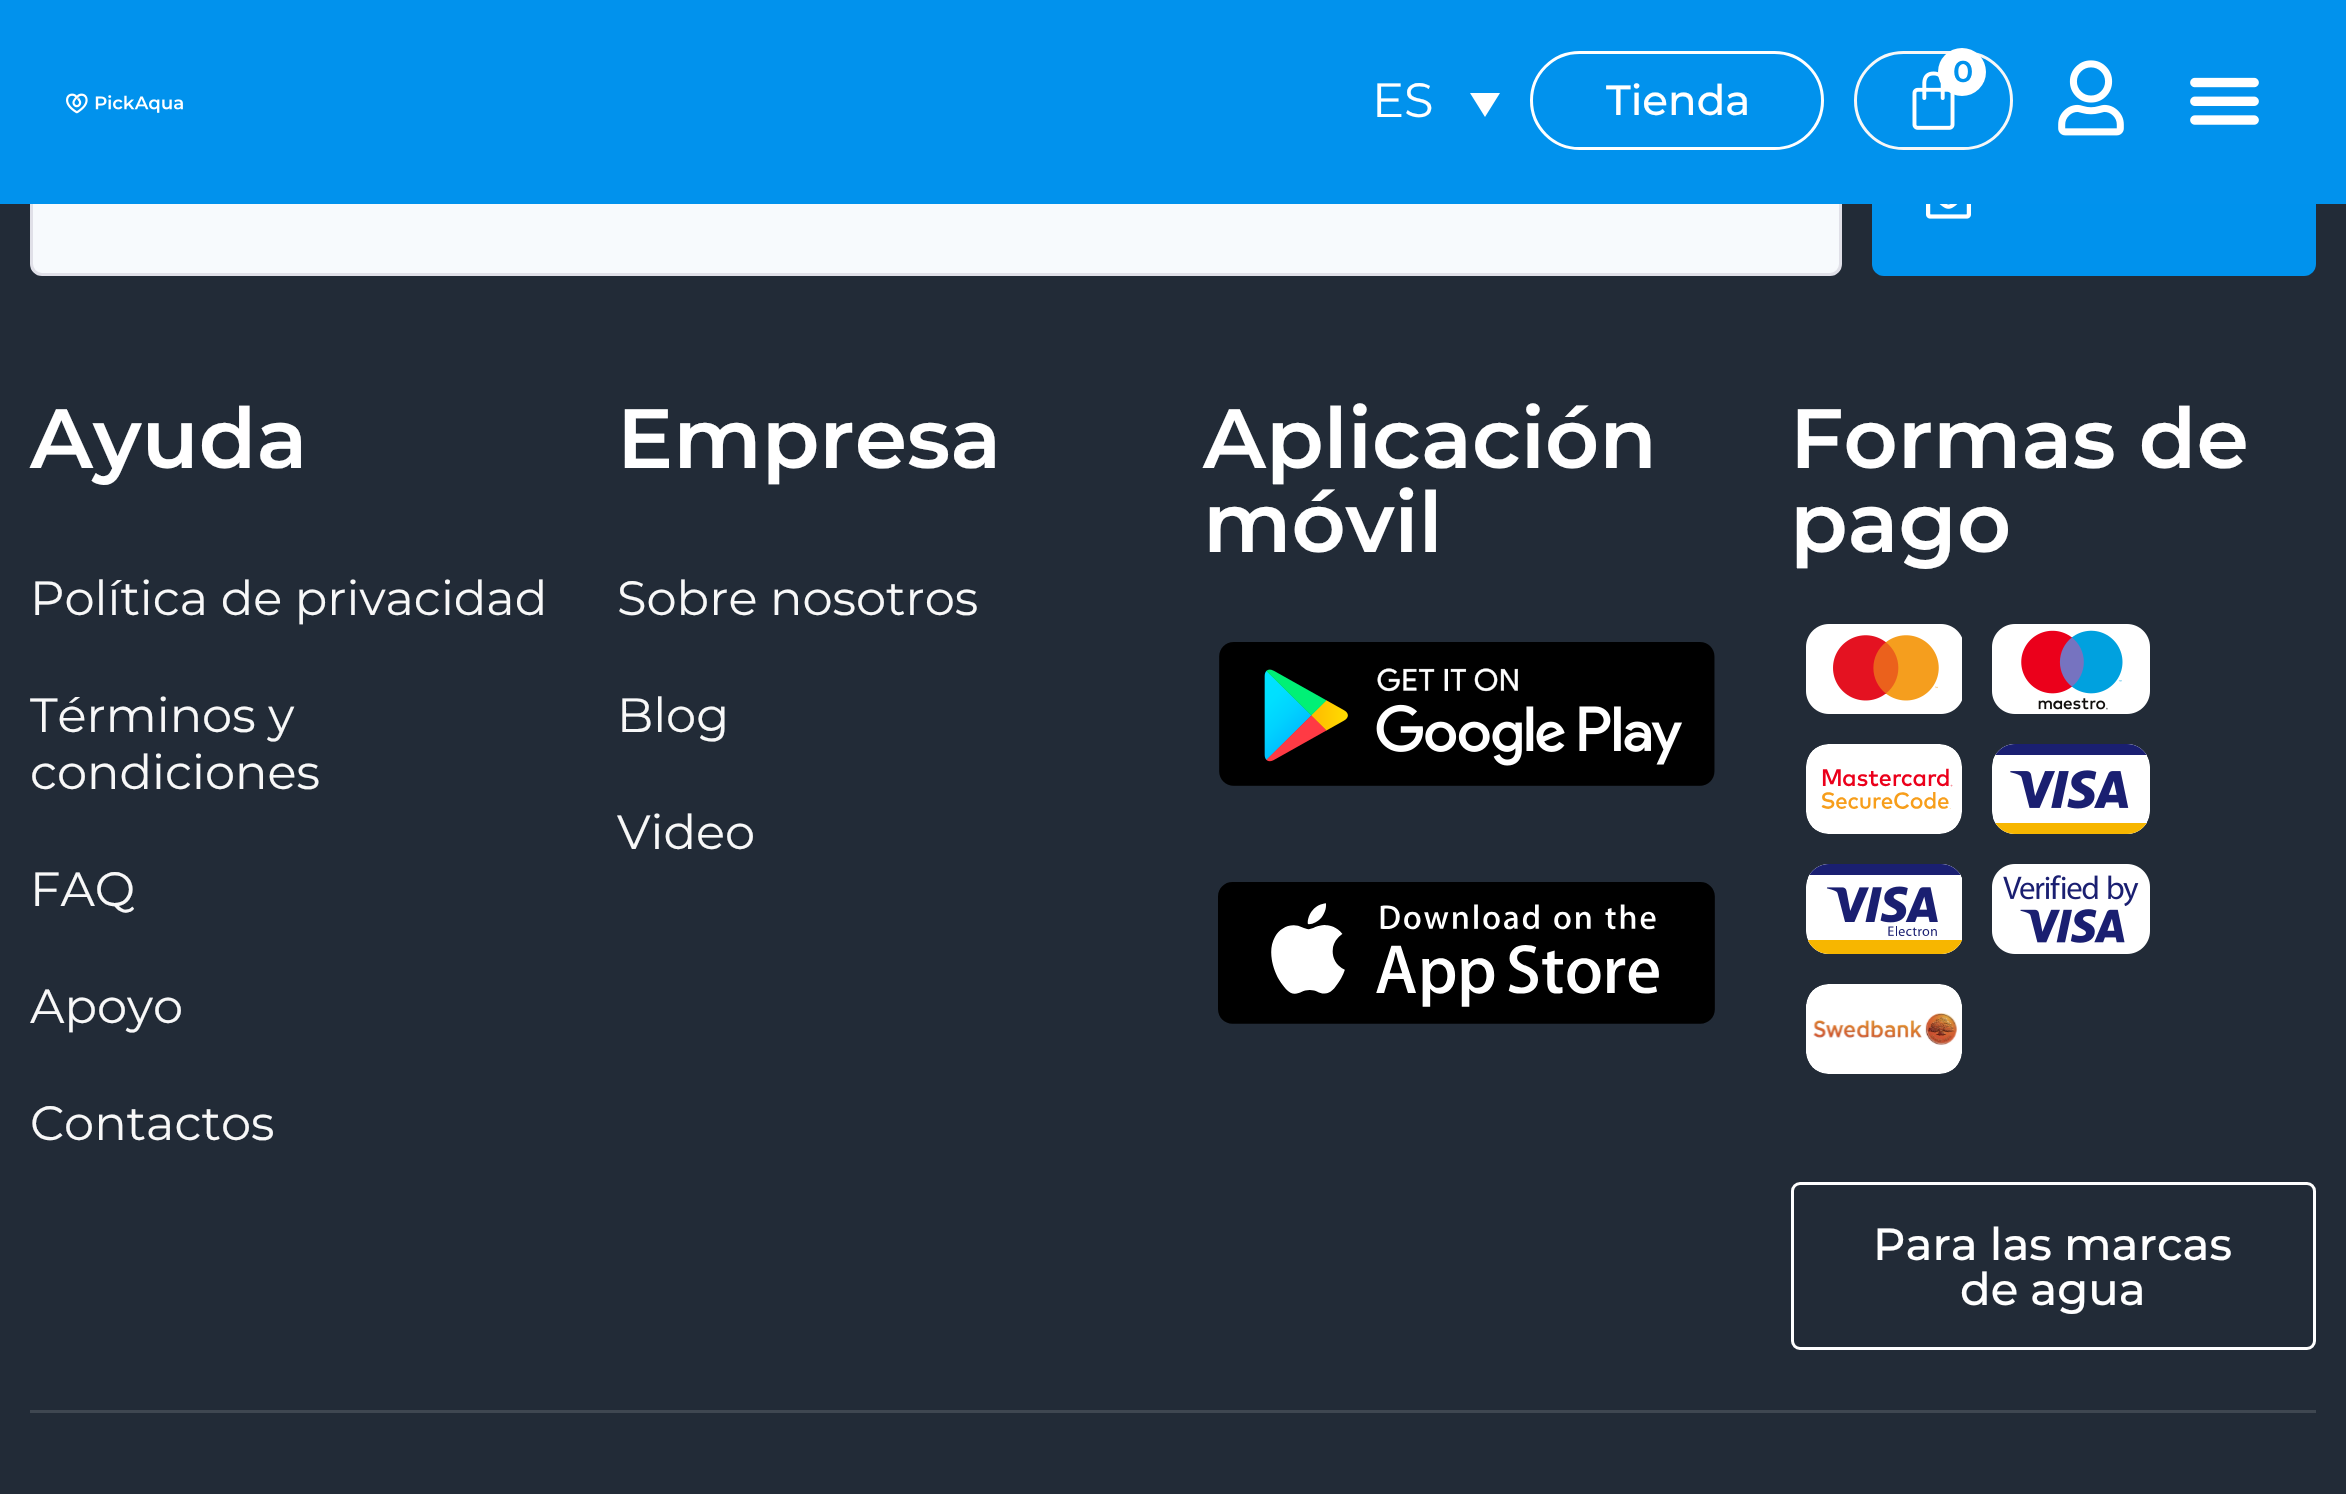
void draw(SkCanvas* canvas) {
    SkPaint paint;
    paint.setAntiAlias(true);
    auto face = [&](const char* family, int weight, float size, bool italic = false) {
        SkFontStyle style(weight, SkFontStyle::kNormal_Width,
            italic ? SkFontStyle::kItalic_Slant : SkFontStyle::kUpright_Slant);
        SkFont result(fontMgr->matchFamilyStyle(family, style), size);
        result.setSubpixel(true);
        return result;
    };
    auto write = [&](const char* s, float x, float y, const SkFont& font, SkColor color) {
        SkPaint ink(SkColor4f::FromColor(color));
        ink.setAntiAlias(true);
        canvas->drawString(s, x, y, font, ink);
    };
    auto block = [&](float x, float y, float w, float h, SkColor color) {
        SkPaint ink(SkColor4f::FromColor(color));
        ink.setAntiAlias(true);
        canvas->drawRect(SkRect::MakeXYWH(x, y, w, h), ink);
    };
    auto card = [&](float x, float y, float w, float h, float radius, SkColor color) {
        SkPaint ink(SkColor4f::FromColor(color));
        ink.setAntiAlias(true);
        canvas->drawRoundRect(SkRect::MakeXYWH(x, y, w, h), radius, radius, ink);
    };
    auto paste = [&](const char* path, float x, float y, float w, float h) {
        auto image = SkImages::DeferredFromEncodedData(SkData::MakeFromFileName(path));
        canvas->drawImageRect(image, SkRect::MakeXYWH(x, y, w, h), SkSamplingOptions());
    };
    canvas->clear(SkColorSetRGB(34, 43, 55));
    paint.setColor(SkColorSetRGB(247, 250, 253));
    canvas->drawRoundRect(SkRect::MakeXYWH(31.5f, 121.5f, 1809, 153), 10.5f, 10.5f, paint);
    paint.setStyle(SkPaint::kStroke_Style);
    paint.setStrokeWidth(3);
    paint.setColor(SkColorSetRGB(224, 224, 232));
    canvas->drawRoundRect(SkRect::MakeXYWH(31.5f, 121.5f, 1809, 153), 10.5f, 10.5f, paint);
    card(1872, 120, 444, 156, 12, SkColorSetRGB(0, 146, 237));
    block(0, 0, 2346, 204, SkColorSetRGB(1, 146, 237));
    paste("pic1.png", 66, 93, 117, 21);
    auto kFont1 = face("Montserrat", 400, 48);
    write("ES", 1372, 117, kFont1, SK_ColorWHITE);
    paint.setStyle(SkPaint::kFill_Style);
    paint.setColor(SK_ColorWHITE);
    canvas->drawPath(SkPathBuilder().moveTo(1470, 93).lineTo(1500, 93).lineTo(1485, 117).close().detach(), paint);
    paint.setStyle(SkPaint::kStroke_Style);
    canvas->drawRoundRect(SkRect::MakeXYWH(1531.5f, 52.5f, 291, 96), 48, 48, paint);
    auto kFont2 = face("Montserrat", 500, 42);
    write("Tienda", 1606, 115, kFont2, SK_ColorWHITE);
    paint.setColor(SkColorSetRGB(247, 247, 247));
    canvas->drawRoundRect(SkRect::MakeXYWH(1855.5f, 52.5f, 156, 96), 48, 48, paint);
    paste("pic2.png", 1912, 71, 43, 59);
    paint.setStyle(SkPaint::kFill_Style);
    paint.setColor(SK_ColorWHITE);
    canvas->drawCircle(1962, 72, 24, paint);
    auto kFont3 = face("Montserrat", 600, 30);
    write("0", 1953, 82, kFont3, SkColorSetRGB(1, 146, 237));
    paste("pic3.png", 2058, 60, 66, 76);
    paste("pic4.png", 2190, 77, 69, 48);
    paste("pic5.png", 1926, 204, 45, 15);
    auto kFont4 = face("Montserrat", 600, 84);
    write("Ayuda", 30, 468, kFont4, SK_ColorWHITE);
    write("Política de privacidad", 30, 615, kFont1, SkColorSetRGB(248, 248, 248));
    write("Términos y", 30, 732, kFont1, SkColorSetRGB(248, 248, 248));
    write("condiciones", 30, 789, kFont1, SkColorSetRGB(248, 248, 248));
    write("FAQ", 30, 906, kFont1, SkColorSetRGB(248, 248, 248));
    write("Apoyo", 30, 1023, kFont1, SkColorSetRGB(248, 248, 248));
    write("Contactos", 30, 1140, kFont1, SkColorSetRGB(248, 248, 248));
    write("Empresa", 617, 468, kFont4, SK_ColorWHITE);
    write("Sobre nosotros", 617, 615, kFont1, SkColorSetRGB(248, 248, 248));
    write("Blog", 617, 732, kFont1, SkColorSetRGB(248, 248, 248));
    write("Video", 617, 849, kFont1, SkColorSetRGB(248, 248, 248));
    write("Aplicación", 1203, 468, kFont4, SK_ColorWHITE);
    write("móvil", 1203, 552, kFont4, SK_ColorWHITE);
    paste("pic6.png", 1219, 642, 496, 144);
    paste("pic7.png", 1218, 882, 497, 142);
    write("Formas de", 1790, 468, kFont4, SK_ColorWHITE);
    write("pago", 1790, 552, kFont4, SK_ColorWHITE);
    paste("pic8.png", 1806, 624, 156, 90);
    paste("pic9.png", 1992, 624, 158, 90);
    paste("pic10.png", 1806, 744, 156, 90);
    paste("pic11.png", 1992, 744, 158, 90);
    paste("pic12.png", 1806, 864, 156, 90);
    paste("pic13.png", 1992, 864, 158, 90);
    paste("pic14.png", 1806, 984, 156, 90);
    paint.setStyle(SkPaint::kStroke_Style);
    canvas->drawRoundRect(SkRect::MakeXYWH(1792.5f, 1183.5f, 522, 165), 7.5f, 7.5f, paint);
    auto kFont5 = face("Montserrat", 500, 45);
    write("Para las marcas", 1873, 1260, kFont5, SK_ColorWHITE);
    write("de agua", 1960, 1305, kFont5, SK_ColorWHITE);
    block(30, 1410, 2286, 3, SkColorSetRGB(63, 71, 81));
}
